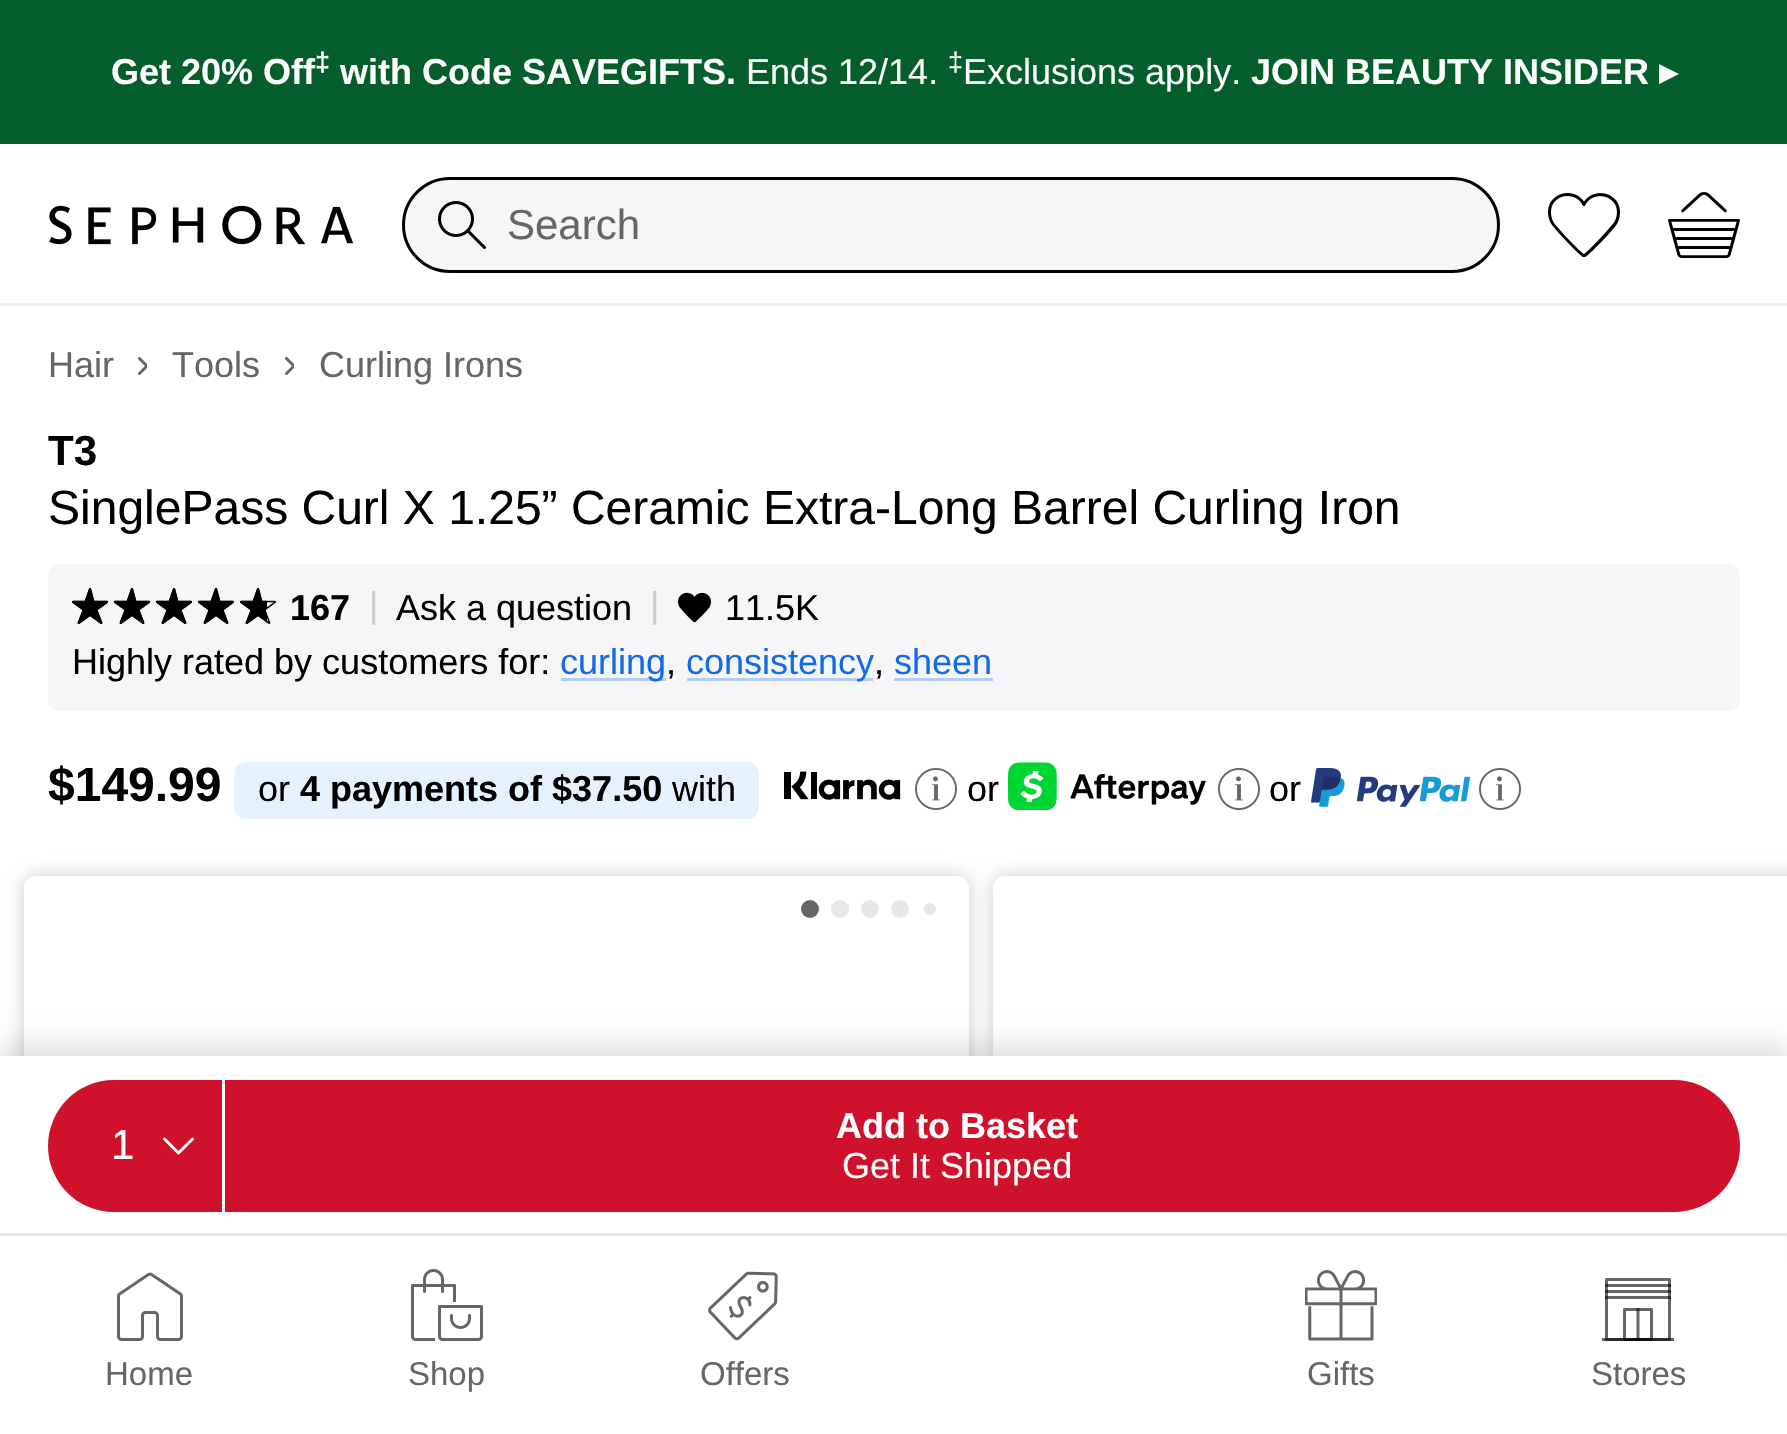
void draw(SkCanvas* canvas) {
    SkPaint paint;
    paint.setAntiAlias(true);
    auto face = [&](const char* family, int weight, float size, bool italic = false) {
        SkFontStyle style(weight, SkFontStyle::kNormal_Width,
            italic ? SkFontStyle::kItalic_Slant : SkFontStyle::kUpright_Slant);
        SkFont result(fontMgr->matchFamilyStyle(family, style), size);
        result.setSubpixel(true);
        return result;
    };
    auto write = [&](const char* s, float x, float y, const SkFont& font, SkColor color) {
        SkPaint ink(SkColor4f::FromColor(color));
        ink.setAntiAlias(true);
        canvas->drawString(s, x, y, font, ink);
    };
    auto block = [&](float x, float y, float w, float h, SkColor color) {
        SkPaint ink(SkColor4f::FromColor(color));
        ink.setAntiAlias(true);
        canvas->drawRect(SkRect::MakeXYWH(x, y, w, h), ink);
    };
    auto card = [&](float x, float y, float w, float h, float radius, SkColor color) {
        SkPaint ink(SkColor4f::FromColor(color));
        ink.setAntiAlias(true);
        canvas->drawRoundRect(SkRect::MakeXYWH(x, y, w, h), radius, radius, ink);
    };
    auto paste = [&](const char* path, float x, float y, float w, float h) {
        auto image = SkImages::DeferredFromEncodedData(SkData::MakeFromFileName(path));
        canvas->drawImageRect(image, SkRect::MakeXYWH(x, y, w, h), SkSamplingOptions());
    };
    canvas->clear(SK_ColorWHITE);
    block(0, 0, 1787, 144, SkColorSetRGB(4, 94, 43));
    auto kFont1 = face("Liberation Sans", 700, 36);
    write("Get 20% Off", 111, 84, kFont1, SK_ColorWHITE);
    auto kFont2 = face("Liberation Sans", 700, 27);
    write("‡", 315, 71, kFont2, SK_ColorWHITE);
    write("with Code SAVEGIFTS.", 340, 84, kFont1, SK_ColorWHITE);
    auto kFont3 = face("Liberation Sans", 400, 36);
    write("Ends 12/14.", 746, 84, kFont3, SK_ColorWHITE);
    auto kFont4 = face("Liberation Sans", 400, 27);
    write("‡", 948, 71, kFont4, SK_ColorWHITE);
    write("Exclusions apply.", 963, 84, kFont3, SK_ColorWHITE);
    write("JOIN BEAUTY INSIDER", 1251, 84, kFont1, SK_ColorWHITE);
    auto kFont5 = face("DejaVu Sans", 700, 36);
    write("▸", 1659, 84, kFont5, SK_ColorWHITE);
    block(0, 303, 1787, 3, SkColorSetRGB(238, 238, 238));
    paste("pic1.png", 49, 205, 304, 40);
    paint.setColor(SkColorSetRGB(246, 246, 248));
    canvas->drawRoundRect(SkRect::MakeXYWH(403.5f, 178.5f, 1095, 93), 46.5f, 46.5f, paint);
    paint.setStyle(SkPaint::kStroke_Style);
    paint.setStrokeWidth(3);
    paint.setColor(SK_ColorBLACK);
    canvas->drawRoundRect(SkRect::MakeXYWH(403.5f, 178.5f, 1095, 93), 46.5f, 46.5f, paint);
    paste("pic2.png", 438, 201, 48, 48);
    auto kFont6 = face("Liberation Sans", 400, 42);
    write("Search", 507, 239, kFont6, SkColorSetRGB(102, 102, 102));
    paste("pic3.png", 1548, 193, 72, 65);
    paste("pic4.png", 1668, 192, 72, 66);
    canvas->save();
    canvas->clipPath(SkPathBuilder(SkPathFillType::kEvenOdd).moveTo(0, 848).lineTo(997, 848).lineTo(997, 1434).lineTo(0, 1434).close().moveTo(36, 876).lineTo(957, 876).cubicTo(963.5f, 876, 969, 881.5f, 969, 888).lineTo(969, 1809).cubicTo(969, 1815.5f, 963.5f, 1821, 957, 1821).lineTo(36, 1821).cubicTo(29.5f, 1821, 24, 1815.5f, 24, 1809).lineTo(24, 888).cubicTo(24, 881.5f, 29.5f, 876, 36, 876).close().detach(), true);
    paint.setStyle(SkPaint::kFill_Style);
    paint.setColor(SkColorSetARGB(51, 0, 0, 0));
    paint.setMaskFilter(SkMaskFilter::MakeBlur(kNormal_SkBlurStyle, 9));
    canvas->drawRoundRect(SkRect::MakeXYWH(24, 876, 945, 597), 12, 12, paint);
    paint.setMaskFilter(nullptr);
    canvas->restore();
    canvas->save();
    canvas->clipPath(SkPathBuilder(SkPathFillType::kEvenOdd).moveTo(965, 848).lineTo(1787, 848).lineTo(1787, 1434).lineTo(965, 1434).close().moveTo(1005, 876).lineTo(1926, 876).cubicTo(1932.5f, 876, 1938, 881.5f, 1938, 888).lineTo(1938, 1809).cubicTo(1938, 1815.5f, 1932.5f, 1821, 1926, 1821).lineTo(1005, 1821).cubicTo(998.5f, 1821, 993, 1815.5f, 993, 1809).lineTo(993, 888).cubicTo(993, 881.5f, 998.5f, 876, 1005, 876).close().detach(), true);
    paint.setMaskFilter(SkMaskFilter::MakeBlur(kNormal_SkBlurStyle, 9));
    canvas->drawRoundRect(SkRect::MakeXYWH(993, 876, 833, 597), 12, 12, paint);
    paint.setMaskFilter(nullptr);
    canvas->restore();
    paint.setColor(SkColorSetARGB(31, 0, 0, 0));
    paint.setMaskFilter(SkMaskFilter::MakeBlur(kNormal_SkBlurStyle, 12));
    canvas->drawRect(SkRect::MakeXYWH(0, 1044, 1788, 180), paint);
    paint.setMaskFilter(nullptr);
    block(0, 1233, 1787, 3, SkColorSetRGB(230, 230, 230));
    block(0, 1236, 1786, 198, SK_ColorWHITE);
    paste("pic5.png", 117, 1272, 66, 69);
    auto kFont7 = face("Liberation Sans", 400, 33);
    write("Home", 105, 1385, kFont7, SkColorSetRGB(102, 102, 102));
    paste("pic6.png", 411, 1269, 72, 72);
    write("Shop", 408, 1385, kFont7, SkColorSetRGB(102, 102, 102));
    paste("pic7.png", 708, 1271, 70, 70);
    write("Offers", 700, 1385, kFont7, SkColorSetRGB(102, 102, 102));
    paste("pic8.png", 1305, 1270, 72, 71);
    write("Gifts", 1307, 1385, kFont7, SkColorSetRGB(102, 102, 102));
    paste("pic9.png", 1602, 1278, 72, 63);
    write("Stores", 1591, 1385, kFont7, SkColorSetRGB(102, 102, 102));
    write("Hair", 48, 377, kFont3, SkColorSetRGB(102, 102, 102));
    canvas->save();
    canvas->clipRect(SkRect::MakeXYWH(138, 357, 9, 18));
    paint.setStyle(SkPaint::kStroke_Style);
    paint.setStrokeCap(SkPaint::kRound_Cap);
    paint.setStrokeJoin(SkPaint::kRound_Join);
    paint.setColor(SkColorSetRGB(102, 102, 102));
    canvas->drawPath(SkPathBuilder().moveTo(139.5f, 373.5f).lineTo(147, 366).lineTo(139.5f, 358.5f).detach(), paint);
    canvas->restore();
    write("Tools", 172, 377, kFont3, SkColorSetRGB(102, 102, 102));
    canvas->save();
    canvas->clipRect(SkRect::MakeXYWH(285, 357, 9, 18));
    canvas->drawPath(SkPathBuilder().moveTo(286.5f, 373.5f).lineTo(294, 366).lineTo(286.5f, 358.5f).detach(), paint);
    canvas->restore();
    write("Curling Irons", 319, 377, kFont3, SkColorSetRGB(102, 102, 102));
    auto kFont8 = face("Liberation Sans", 700, 42);
    write("T3", 48, 465, kFont8, SK_ColorBLACK);
    auto kFont9 = face("Liberation Sans", 400, 48);
    write("SinglePass Curl X 1.25” Ceramic Extra-Long Barrel Curling Iron", 48, 524, kFont9, SK_ColorBLACK);
    card(48, 564, 1692, 147, 12, SkColorSetRGB(246, 246, 248));
    paste("pic10.png", 72, 588, 36, 36);
    paste("pic10.png", 114, 588, 36, 36);
    paste("pic10.png", 156, 588, 36, 36);
    paste("pic10.png", 198, 588, 36, 36);
    paste("pic10.png", 240, 588, 36, 36);
    paste("pic11.png", 72, 588, 36, 36);
    paste("pic11.png", 114, 588, 36, 36);
    paste("pic11.png", 156, 588, 36, 36);
    paste("pic11.png", 198, 588, 36, 36);
    paste("pic12.png", 240, 588, 27, 36);
    write("167", 290, 620, kFont1, SK_ColorBLACK);
    write("|", 369, 617, kFont3, SkColorSetRGB(204, 204, 204));
    write("Ask a question", 396, 620, kFont3, SK_ColorBLACK);
    write("|", 650, 617, kFont3, SkColorSetRGB(204, 204, 204));
    paste("pic13.png", 678, 592, 33, 31);
    write("11.5K", 725, 620, kFont3, SK_ColorBLACK);
    write("Highly rated by customers for:", 72, 674, kFont3, SK_ColorBLACK);
    block(561, 678, 105, 3, SkColorSetRGB(178, 204, 244));
    write("curling", 560, 674, kFont3, SkColorSetRGB(19, 107, 234));
    write(",", 666, 674, kFont3, SK_ColorBLACK);
    block(687, 678, 186, 3, SkColorSetRGB(178, 204, 244));
    write("consistency", 686, 674, kFont3, SkColorSetRGB(19, 107, 234));
    write(",", 874, 674, kFont3, SK_ColorBLACK);
    write("sheen", 894, 674, kFont3, SkColorSetRGB(19, 107, 234));
    block(894, 678, 99, 3, SkColorSetRGB(178, 204, 244));
    auto kFont10 = face("Liberation Sans", 700, 48);
    write("$149.99", 48, 801, kFont10, SK_ColorBLACK);
    card(234, 762, 525, 57, 12, SkColorSetRGB(229, 242, 253));
    write("or", 258, 801, kFont3, SK_ColorBLACK);
    write("4 payments of $37.50", 300, 801, kFont1, SK_ColorBLACK);
    write("with", 672, 801, kFont3, SK_ColorBLACK);
    paste("pic14.png", 784, 771, 117, 29);
    paste("pic15.png", 915, 768, 42, 42);
    write("or", 967, 801, kFont3, SK_ColorBLACK);
    paste("pic16.png", 1008, 762, 198, 48);
    paste("pic15.png", 1218, 768, 42, 42);
    write("or", 1269, 801, kFont3, SK_ColorBLACK);
    paste("pic17.png", 1311, 768, 159, 39);
    paste("pic15.png", 1479, 768, 42, 42);
    paint.setStyle(SkPaint::kFill_Style);
    canvas->drawCircle(810, 909, 9, paint);
    paint.setColor(SkColorSetRGB(231, 231, 231));
    canvas->drawCircle(840, 909, 9, paint);
    canvas->drawCircle(870, 909, 9, paint);
    canvas->drawCircle(900, 909, 9, paint);
    canvas->drawCircle(930, 909, 6, paint);
    block(0, 1056, 1787, 177, SK_ColorWHITE);
    card(48, 1080, 1692, 132, 66, SkColorSetRGB(207, 17, 44));
    block(222, 1080, 3, 132, SK_ColorWHITE);
    write("1", 111, 1159, kFont6, SK_ColorWHITE);
    paint.setStyle(SkPaint::kStroke_Style);
    paint.setColor(SK_ColorWHITE);
    canvas->drawPath(SkPathBuilder().moveTo(164.5f, 1139).lineTo(178.5f, 1153).lineTo(192.5f, 1139).detach(), paint);
    write("Add to Basket", 836, 1138, kFont1, SK_ColorWHITE);
    write("Get It Shipped", 842, 1178, kFont3, SK_ColorWHITE);
}
